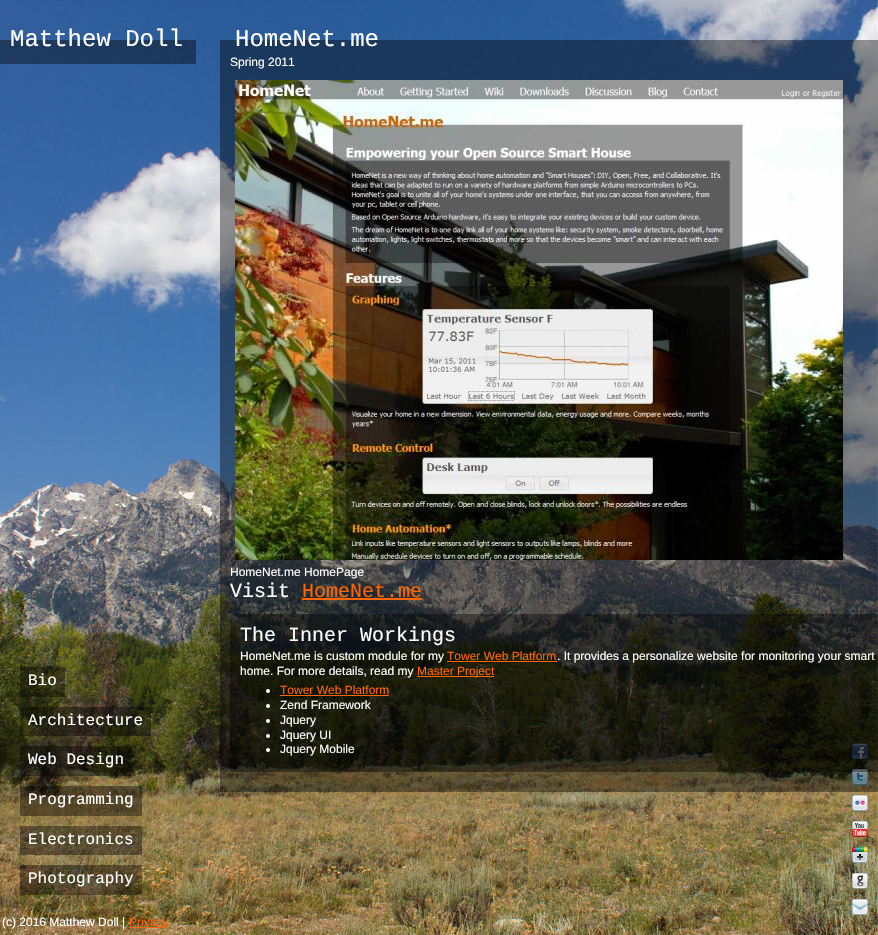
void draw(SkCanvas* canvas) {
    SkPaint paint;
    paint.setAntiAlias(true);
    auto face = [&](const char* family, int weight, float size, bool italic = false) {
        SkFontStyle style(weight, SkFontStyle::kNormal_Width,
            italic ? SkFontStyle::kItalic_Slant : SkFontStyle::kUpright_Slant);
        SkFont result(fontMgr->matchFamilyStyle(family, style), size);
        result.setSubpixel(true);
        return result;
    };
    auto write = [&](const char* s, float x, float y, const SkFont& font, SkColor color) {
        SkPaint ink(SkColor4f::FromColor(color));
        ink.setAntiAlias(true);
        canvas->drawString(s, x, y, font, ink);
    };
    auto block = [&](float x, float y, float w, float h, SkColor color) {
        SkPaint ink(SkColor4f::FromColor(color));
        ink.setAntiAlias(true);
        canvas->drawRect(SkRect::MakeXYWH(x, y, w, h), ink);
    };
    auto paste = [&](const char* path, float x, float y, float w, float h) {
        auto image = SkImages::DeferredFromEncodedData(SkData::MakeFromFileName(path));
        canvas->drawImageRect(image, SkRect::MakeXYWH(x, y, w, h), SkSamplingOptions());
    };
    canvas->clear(SK_ColorWHITE);
    paste("pic1.png", 0, 0, 878, 935);
    block(0, 40, 196, 24, SkColorSetARGB(102, 0, 0, 0));
    auto kFont1 = face("Liberation Mono", 400, 24);
    write("Matthew Doll", 10, 46, kFont1, SK_ColorWHITE);
    paste("pic3.png", 852, 743, 16, 16);
    paste("pic4.png", 852, 769, 16, 16);
    block(220, 40, 658, 752, SkColorSetARGB(102, 0, 0, 0));
    write("HomeNet.me", 235, 46, kFont1, SK_ColorWHITE);
    auto kFont2 = face("Liberation Sans", 400, 12);
    write("Spring 2011", 230, 66, kFont2, SK_ColorWHITE);
    paste("pic2.png", 235, 80, 608, 480);
    write("HomeNet.me HomePage", 230, 576, kFont2, SK_ColorWHITE);
    auto kFont3 = face("Liberation Mono", 400, 20);
    write("Visit", 230, 597, kFont3, SK_ColorWHITE);
    write("HomeNet.me", 302, 597, kFont3, SkColorSetRGB(255, 102, 0));
    block(302, 598, 120, 2, SkColorSetRGB(255, 102, 0));
    block(230, 614, 648, 158, SkColorSetARGB(102, 0, 0, 0));
    write("The Inner Workings", 240, 641, kFont3, SK_ColorWHITE);
    write("HomeNet.me is custom module for my", 240, 660, kFont2, SK_ColorWHITE);
    write("Tower Web Platform", 447, 660, kFont2, SkColorSetRGB(255, 102, 0));
    block(447, 661, 110, 1, SkColorSetRGB(255, 102, 0));
    write(". It provides a personalize website for monitoring your smart", 557, 660, kFont2, SK_ColorWHITE);
    write("home. For more details, read my", 240, 675, kFont2, SK_ColorWHITE);
    block(417, 676, 77, 1, SkColorSetRGB(255, 102, 0));
    write("Master Project", 417, 675, kFont2, SkColorSetRGB(255, 102, 0));
    paint.setColor(SK_ColorWHITE);
    canvas->drawCircle(268, 691, 2, paint);
    write("Tower Web Platform", 280, 694, kFont2, SkColorSetRGB(255, 102, 0));
    block(280, 695, 109, 1, SkColorSetRGB(255, 102, 0));
    canvas->drawCircle(268, 706, 2, paint);
    write("Zend Framework", 280, 709, kFont2, SK_ColorWHITE);
    canvas->drawCircle(268, 721, 2, paint);
    write("Jquery", 280, 724, kFont2, SK_ColorWHITE);
    canvas->drawCircle(268, 736, 2, paint);
    write("Jquery UI", 280, 739, kFont2, SK_ColorWHITE);
    canvas->drawCircle(268, 750, 2, paint);
    write("Jquery Mobile", 280, 753, kFont2, SK_ColorWHITE);
    block(20, 667, 45, 30, SkColorSetARGB(102, 0, 0, 0));
    auto kFont4 = face("Liberation Mono", 400, 16);
    write("Bio", 28, 685, kFont4, SK_ColorWHITE);
    block(20, 707, 131, 29, SkColorSetARGB(102, 0, 0, 0));
    write("Architecture", 28, 725, kFont4, SK_ColorWHITE);
    block(20, 746, 112, 30, SkColorSetARGB(102, 0, 0, 0));
    write("Web Design", 28, 764, kFont4, SK_ColorWHITE);
    block(20, 786, 122, 30, SkColorSetARGB(102, 0, 0, 0));
    write("Programming", 28, 804, kFont4, SK_ColorWHITE);
    block(20, 826, 122, 29, SkColorSetARGB(102, 0, 0, 0));
    write("Electronics", 28, 844, kFont4, SK_ColorWHITE);
    block(20, 865, 122, 30, SkColorSetARGB(102, 0, 0, 0));
    write("Photography", 28, 883, kFont4, SK_ColorWHITE);
    paste("pic5.png", 852, 795, 16, 16);
    paste("pic6.png", 852, 821, 16, 16);
    paste("pic7.png", 852, 847, 16, 16);
    paste("pic8.png", 852, 873, 16, 16);
    paste("pic9.png", 852, 899, 16, 16);
    write("(c) 2016 Matthew Doll |", 2, 926, kFont2, SK_ColorWHITE);
    block(129, 927, 39, 1, SkColorSetRGB(255, 102, 0));
    write("Privacy", 129, 926, kFont2, SkColorSetRGB(255, 102, 0));
}
